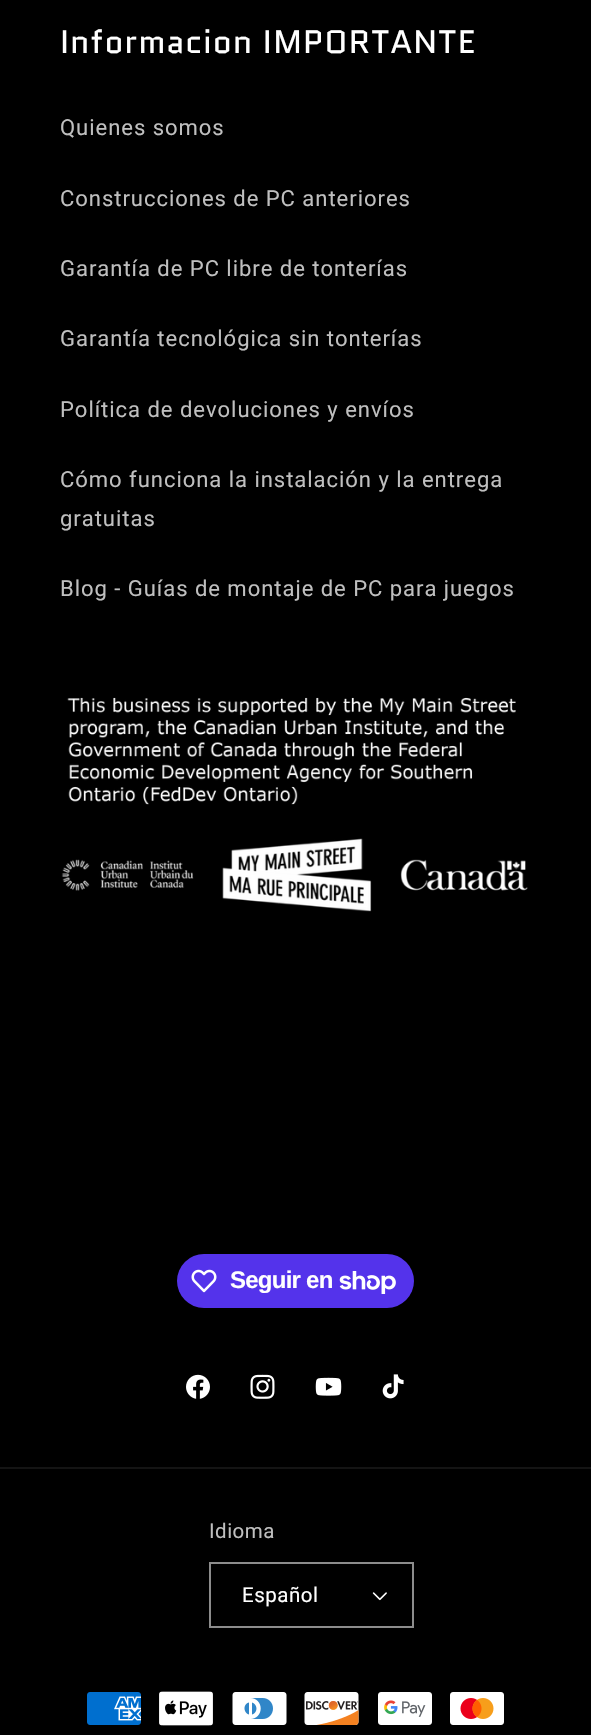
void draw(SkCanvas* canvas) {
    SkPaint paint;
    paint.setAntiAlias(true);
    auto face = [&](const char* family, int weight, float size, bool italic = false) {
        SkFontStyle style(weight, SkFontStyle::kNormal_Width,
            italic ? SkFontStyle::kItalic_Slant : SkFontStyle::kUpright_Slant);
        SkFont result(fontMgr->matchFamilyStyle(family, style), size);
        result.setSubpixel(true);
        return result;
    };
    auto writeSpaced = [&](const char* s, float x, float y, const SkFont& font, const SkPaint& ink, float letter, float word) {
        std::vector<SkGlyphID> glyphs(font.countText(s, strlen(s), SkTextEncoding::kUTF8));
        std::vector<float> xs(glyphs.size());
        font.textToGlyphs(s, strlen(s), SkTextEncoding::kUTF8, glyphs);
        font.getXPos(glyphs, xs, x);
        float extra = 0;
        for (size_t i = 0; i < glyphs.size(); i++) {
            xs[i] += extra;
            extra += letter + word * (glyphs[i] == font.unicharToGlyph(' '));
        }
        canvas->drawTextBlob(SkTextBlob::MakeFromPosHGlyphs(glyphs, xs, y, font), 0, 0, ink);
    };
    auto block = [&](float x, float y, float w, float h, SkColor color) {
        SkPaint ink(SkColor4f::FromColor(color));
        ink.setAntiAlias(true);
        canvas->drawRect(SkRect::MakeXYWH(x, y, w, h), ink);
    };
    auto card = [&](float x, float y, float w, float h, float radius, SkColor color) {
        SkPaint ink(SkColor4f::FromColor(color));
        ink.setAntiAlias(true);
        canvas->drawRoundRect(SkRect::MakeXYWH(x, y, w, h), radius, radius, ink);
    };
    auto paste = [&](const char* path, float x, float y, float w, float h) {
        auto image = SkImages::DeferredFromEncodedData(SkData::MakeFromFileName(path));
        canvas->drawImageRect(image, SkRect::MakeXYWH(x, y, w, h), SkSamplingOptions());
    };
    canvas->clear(SK_ColorBLACK);
    auto kFont1 = face("Quantico", 400, 32.4f);
    paint.setColor(SK_ColorWHITE);
    writeSpaced("Informacion IMPORTANTE", 60, 53, kFont1, paint, 1.25f, 0);
    auto kFont2 = face("Roboto", 400, 22.05f);
    paint.setColor(SkColorSetRGB(191, 191, 191));
    writeSpaced("Quienes somos", 60, 135, kFont2, paint, 0.95f, 0);
    writeSpaced("Construcciones de PC anteriores", 60, 206, kFont2, paint, 0.95f, 0);
    writeSpaced("Garantía de PC libre de tonterías", 60, 276, kFont2, paint, 0.95f, 0);
    writeSpaced("Garantía tecnológica sin tonterías", 60, 346, kFont2, paint, 0.95f, 0);
    writeSpaced("Política de devoluciones y envíos", 60, 417, kFont2, paint, 0.95f, 0);
    writeSpaced("Cómo funciona la instalación y la entrega", 60, 487, kFont2, paint, 0.95f, 0);
    writeSpaced("gratuitas", 60, 526, kFont2, paint, 0.95f, 0);
    writeSpaced("Blog - Guías de montaje de PC para juegos", 60, 596, kFont2, paint, 0.95f, 0);
    paste("pic1.png", 61, 697, 467, 215);
    card(177, 1254, 237, 54, 27, SkColorSetRGB(84, 51, 235));
    paste("pic2.png", 191, 1269, 26, 24);
    auto kFont3 = face("Liberation Sans", 700, 24);
    paint.setColor(SK_ColorWHITE);
    writeSpaced("Seguir en", 230, 1288, kFont3, paint, -0.75f, 0);
    paste("pic3.png", 339, 1271, 57, 23);
    paste("pic4.png", 186, 1374, 24, 25);
    paste("pic5.png", 250, 1374, 25, 25);
    paste("pic6.png", 315, 1377, 27, 19);
    paste("pic7.png", 382, 1374, 22, 25);
    block(0, 1467, 591, 2, SkColorSetRGB(20, 20, 20));
    auto kFont4 = face("Roboto", 400, 20.5f);
    paint.setColor(SkColorSetRGB(191, 191, 191));
    writeSpaced("Idioma", 209, 1538, kFont4, paint, 0.5f, 0);
    paste("pic8.png", 372, 1592, 15, 9);
    paint.setStyle(SkPaint::kStroke_Style);
    paint.setStrokeWidth(2);
    paint.setColor(SkColorSetRGB(140, 140, 140));
    canvas->drawRect(SkRect::MakeXYWH(210, 1563, 203, 64), paint);
    paint.setStyle(SkPaint::kFill_Style);
    paint.setColor(SK_ColorWHITE);
    writeSpaced("Español", 242, 1602, kFont4, paint, 0.5f, 0);
    paste("pic9.png", 87, 1692, 54, 33);
    paste("pic10.png", 159, 1691, 54, 35);
    paste("pic11.png", 232, 1692, 55, 33);
    paste("pic12.png", 304, 1692, 55, 33);
    paste("pic13.png", 378, 1692, 54, 33);
    paste("pic14.png", 450, 1692, 54, 33);
}
